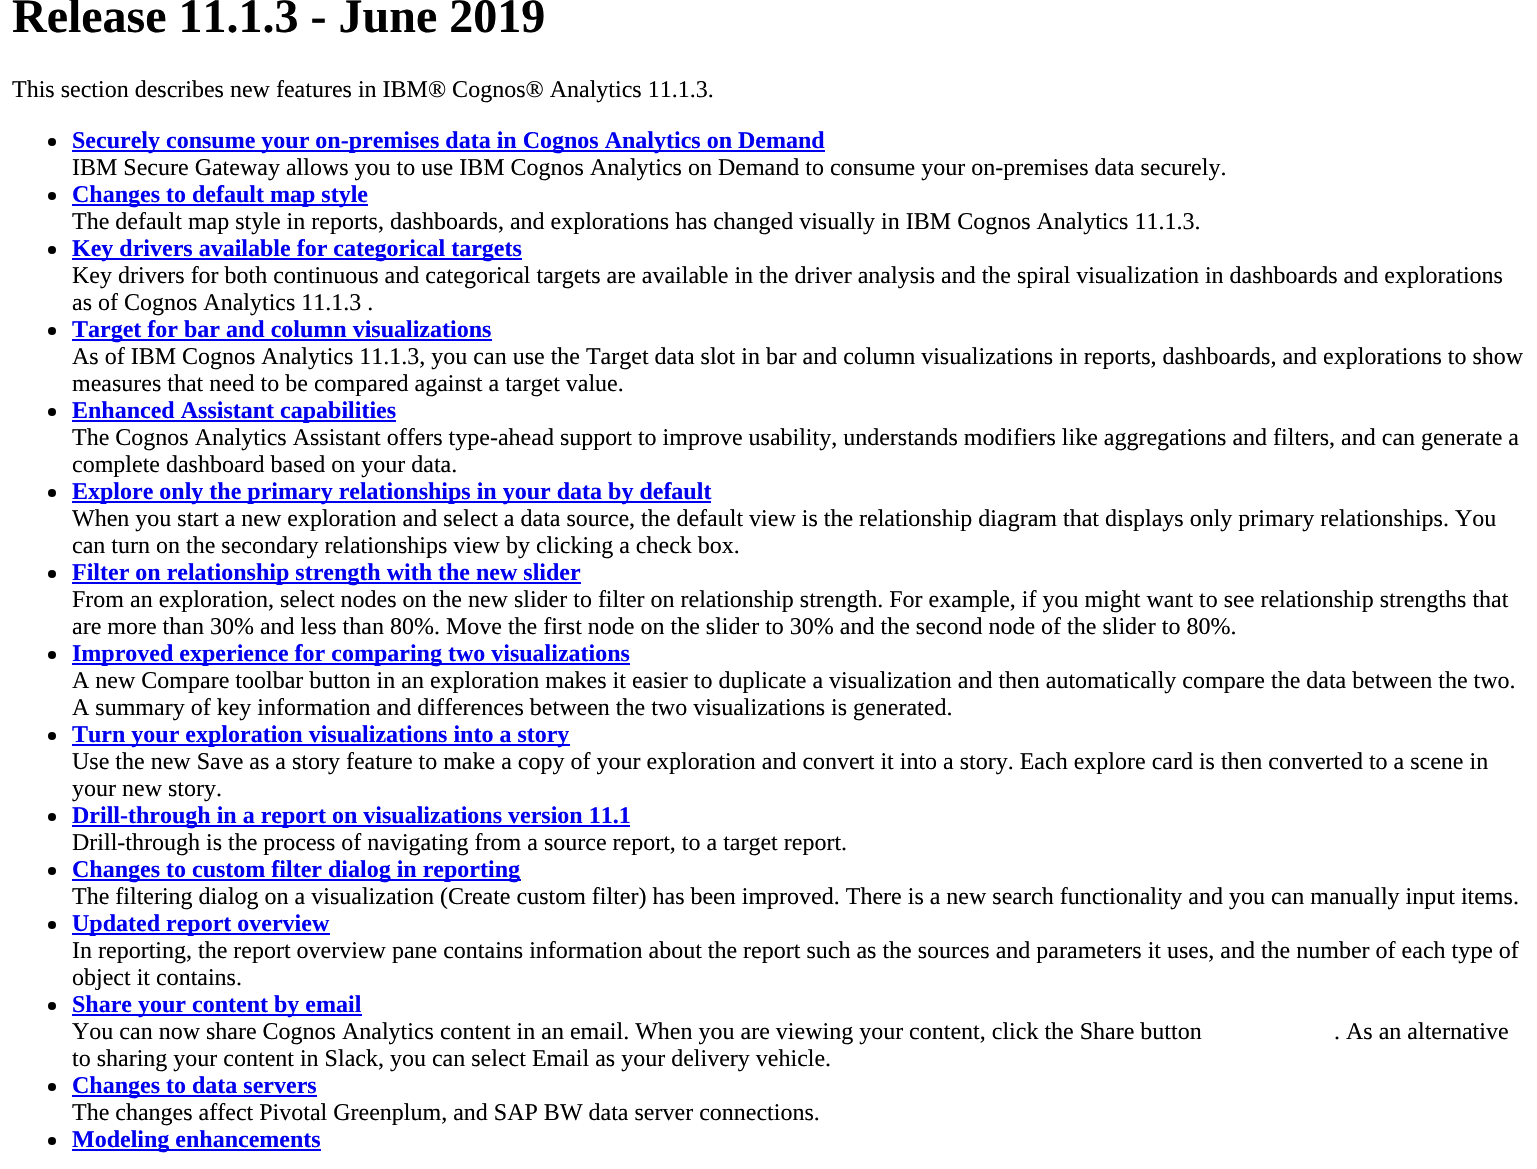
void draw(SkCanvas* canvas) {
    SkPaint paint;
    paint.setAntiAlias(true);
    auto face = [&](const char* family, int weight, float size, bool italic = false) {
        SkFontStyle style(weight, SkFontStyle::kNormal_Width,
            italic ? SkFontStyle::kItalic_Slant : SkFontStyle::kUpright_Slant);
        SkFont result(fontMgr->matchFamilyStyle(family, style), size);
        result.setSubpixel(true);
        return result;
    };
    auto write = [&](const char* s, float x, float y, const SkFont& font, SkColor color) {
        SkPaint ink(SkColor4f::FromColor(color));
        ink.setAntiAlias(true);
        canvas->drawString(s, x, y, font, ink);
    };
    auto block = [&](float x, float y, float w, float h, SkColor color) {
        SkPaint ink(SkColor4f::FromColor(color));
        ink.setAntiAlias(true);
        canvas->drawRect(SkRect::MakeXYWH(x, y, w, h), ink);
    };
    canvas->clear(SK_ColorWHITE);
    auto kFont1 = face("Liberation Serif", 700, 48);
    write("Release 11.1.3 - June 2019", 12, 32, kFont1, SK_ColorBLACK);
    auto kFont2 = face("Liberation Serif", 400, 24);
    write("This section describes new features in IBM® Cognos® Analytics 11.1.3.", 12, 97, kFont2, SK_ColorBLACK);
    paint.setColor(SK_ColorBLACK);
    canvas->drawCircle(52, 142, 4, paint);
    block(72, 150, 753, 2, SkColorSetRGB(0, 0, 238));
    auto kFont3 = face("Liberation Serif", 700, 24);
    write("Securely consume your on-premises data in Cognos Analytics on Demand", 72, 148, kFont3, SkColorSetRGB(0, 0, 238));
    write("IBM Secure Gateway allows you to use IBM Cognos Analytics on Demand to consume your on-premises data securely.", 72, 175, kFont2, SK_ColorBLACK);
    canvas->drawCircle(52, 196, 4, paint);
    block(72, 204, 296, 2, SkColorSetRGB(0, 0, 238));
    write("Changes to default map style", 72, 202, kFont3, SkColorSetRGB(0, 0, 238));
    write("The default map style in reports, dashboards, and explorations has changed visually in IBM Cognos Analytics 11.1.3.", 72, 229, kFont2, SK_ColorBLACK);
    canvas->drawCircle(52, 250, 4, paint);
    block(72, 258, 450, 2, SkColorSetRGB(0, 0, 238));
    write("Key drivers available for categorical targets", 72, 256, kFont3, SkColorSetRGB(0, 0, 238));
    write("Key drivers for both continuous and categorical targets are available in the driver analysis and the spiral visualization in dashboards and explorations", 72, 283, kFont2, SK_ColorBLACK);
    write("as of Cognos Analytics 11.1.3 .", 72, 310, kFont2, SK_ColorBLACK);
    canvas->drawCircle(52, 331, 4, paint);
    block(72, 339, 420, 2, SkColorSetRGB(0, 0, 238));
    write("Target for bar and column visualizations", 72, 337, kFont3, SkColorSetRGB(0, 0, 238));
    write("As of IBM Cognos Analytics 11.1.3, you can use the Target data slot in bar and column visualizations in reports, dashboards, and explorations to show", 72, 364, kFont2, SK_ColorBLACK);
    write("measures that need to be compared against a target value.", 72, 391, kFont2, SK_ColorBLACK);
    canvas->drawCircle(52, 412, 4, paint);
    block(72, 420, 324, 2, SkColorSetRGB(0, 0, 238));
    write("Enhanced Assistant capabilities", 72, 418, kFont3, SkColorSetRGB(0, 0, 238));
    write("The Cognos Analytics Assistant offers type-ahead support to improve usability, understands modifiers like aggregations and filters, and can generate a", 72, 445, kFont2, SK_ColorBLACK);
    write("complete dashboard based on your data.", 72, 472, kFont2, SK_ColorBLACK);
    canvas->drawCircle(52, 493, 4, paint);
    block(72, 501, 639, 2, SkColorSetRGB(0, 0, 238));
    write("Explore only the primary relationships in your data by default", 72, 499, kFont3, SkColorSetRGB(0, 0, 238));
    write("When you start a new exploration and select a data source, the default view is the relationship diagram that displays only primary relationships. You", 72, 526, kFont2, SK_ColorBLACK);
    write("can turn on the secondary relationships view by clicking a check box.", 72, 553, kFont2, SK_ColorBLACK);
    canvas->drawCircle(52, 574, 4, paint);
    block(72, 582, 509, 2, SkColorSetRGB(0, 0, 238));
    write("Filter on relationship strength with the new slider", 72, 580, kFont3, SkColorSetRGB(0, 0, 238));
    write("From an exploration, select nodes on the new slider to filter on relationship strength. For example, if you might want to see relationship strengths that", 72, 607, kFont2, SK_ColorBLACK);
    write("are more than 30% and less than 80%. Move the first node on the slider to 30% and the second node of the slider to 80%.", 72, 634, kFont2, SK_ColorBLACK);
    canvas->drawCircle(52, 655, 4, paint);
    block(72, 663, 558, 2, SkColorSetRGB(0, 0, 238));
    write("Improved experience for comparing two visualizations", 72, 661, kFont3, SkColorSetRGB(0, 0, 238));
    write("A new Compare toolbar button in an exploration makes it easier to duplicate a visualization and then automatically compare the data between the two.", 72, 688, kFont2, SK_ColorBLACK);
    write("A summary of key information and differences between the two visualizations is generated.", 72, 715, kFont2, SK_ColorBLACK);
    canvas->drawCircle(52, 736, 4, paint);
    block(72, 744, 498, 2, SkColorSetRGB(0, 0, 238));
    write("Turn your exploration visualizations into a story", 72, 742, kFont3, SkColorSetRGB(0, 0, 238));
    write("Use the new Save as a story feature to make a copy of your exploration and convert it into a story. Each explore card is then converted to a scene in", 72, 769, kFont2, SK_ColorBLACK);
    write("your new story.", 72, 796, kFont2, SK_ColorBLACK);
    canvas->drawCircle(52, 817, 4, paint);
    block(72, 825, 558, 2, SkColorSetRGB(0, 0, 238));
    write("Drill-through in a report on visualizations version 11.1", 72, 823, kFont3, SkColorSetRGB(0, 0, 238));
    write("Drill-through is the process of navigating from a source report, to a target report.", 72, 850, kFont2, SK_ColorBLACK);
    canvas->drawCircle(52, 871, 4, paint);
    block(72, 879, 449, 2, SkColorSetRGB(0, 0, 238));
    write("Changes to custom filter dialog in reporting", 72, 877, kFont3, SkColorSetRGB(0, 0, 238));
    write("The filtering dialog on a visualization (Create custom filter) has been improved. There is a new search functionality and you can manually input items.", 72, 904, kFont2, SK_ColorBLACK);
    canvas->drawCircle(52, 925, 4, paint);
    block(72, 933, 258, 2, SkColorSetRGB(0, 0, 238));
    write("Updated report overview", 72, 931, kFont3, SkColorSetRGB(0, 0, 238));
    write("In reporting, the report overview pane contains information about the report such as the sources and parameters it uses, and the number of each type of", 72, 958, kFont2, SK_ColorBLACK);
    write("object it contains.", 72, 985, kFont2, SK_ColorBLACK);
    canvas->drawCircle(52, 1006, 4, paint);
    block(72, 1014, 290, 2, SkColorSetRGB(0, 0, 238));
    write("Share your content by email", 72, 1012, kFont3, SkColorSetRGB(0, 0, 238));
    write("You can now share Cognos Analytics content in an email. When you are viewing your content, click the Share button", 72, 1039, kFont2, SK_ColorBLACK);
    write(". As an alternative", 1334, 1039, kFont2, SK_ColorBLACK);
    write("to sharing your content in Slack, you can select Email as your delivery vehicle.", 72, 1066, kFont2, SK_ColorBLACK);
    canvas->drawCircle(52, 1087, 4, paint);
    block(72, 1095, 245, 2, SkColorSetRGB(0, 0, 238));
    write("Changes to data servers", 72, 1093, kFont3, SkColorSetRGB(0, 0, 238));
    write("The changes affect Pivotal Greenplum, and SAP BW data server connections.", 72, 1120, kFont2, SK_ColorBLACK);
    canvas->drawCircle(52, 1141, 4, paint);
    block(72, 1149, 249, 2, SkColorSetRGB(0, 0, 238));
    write("Modeling enhancements", 72, 1147, kFont3, SkColorSetRGB(0, 0, 238));
}
